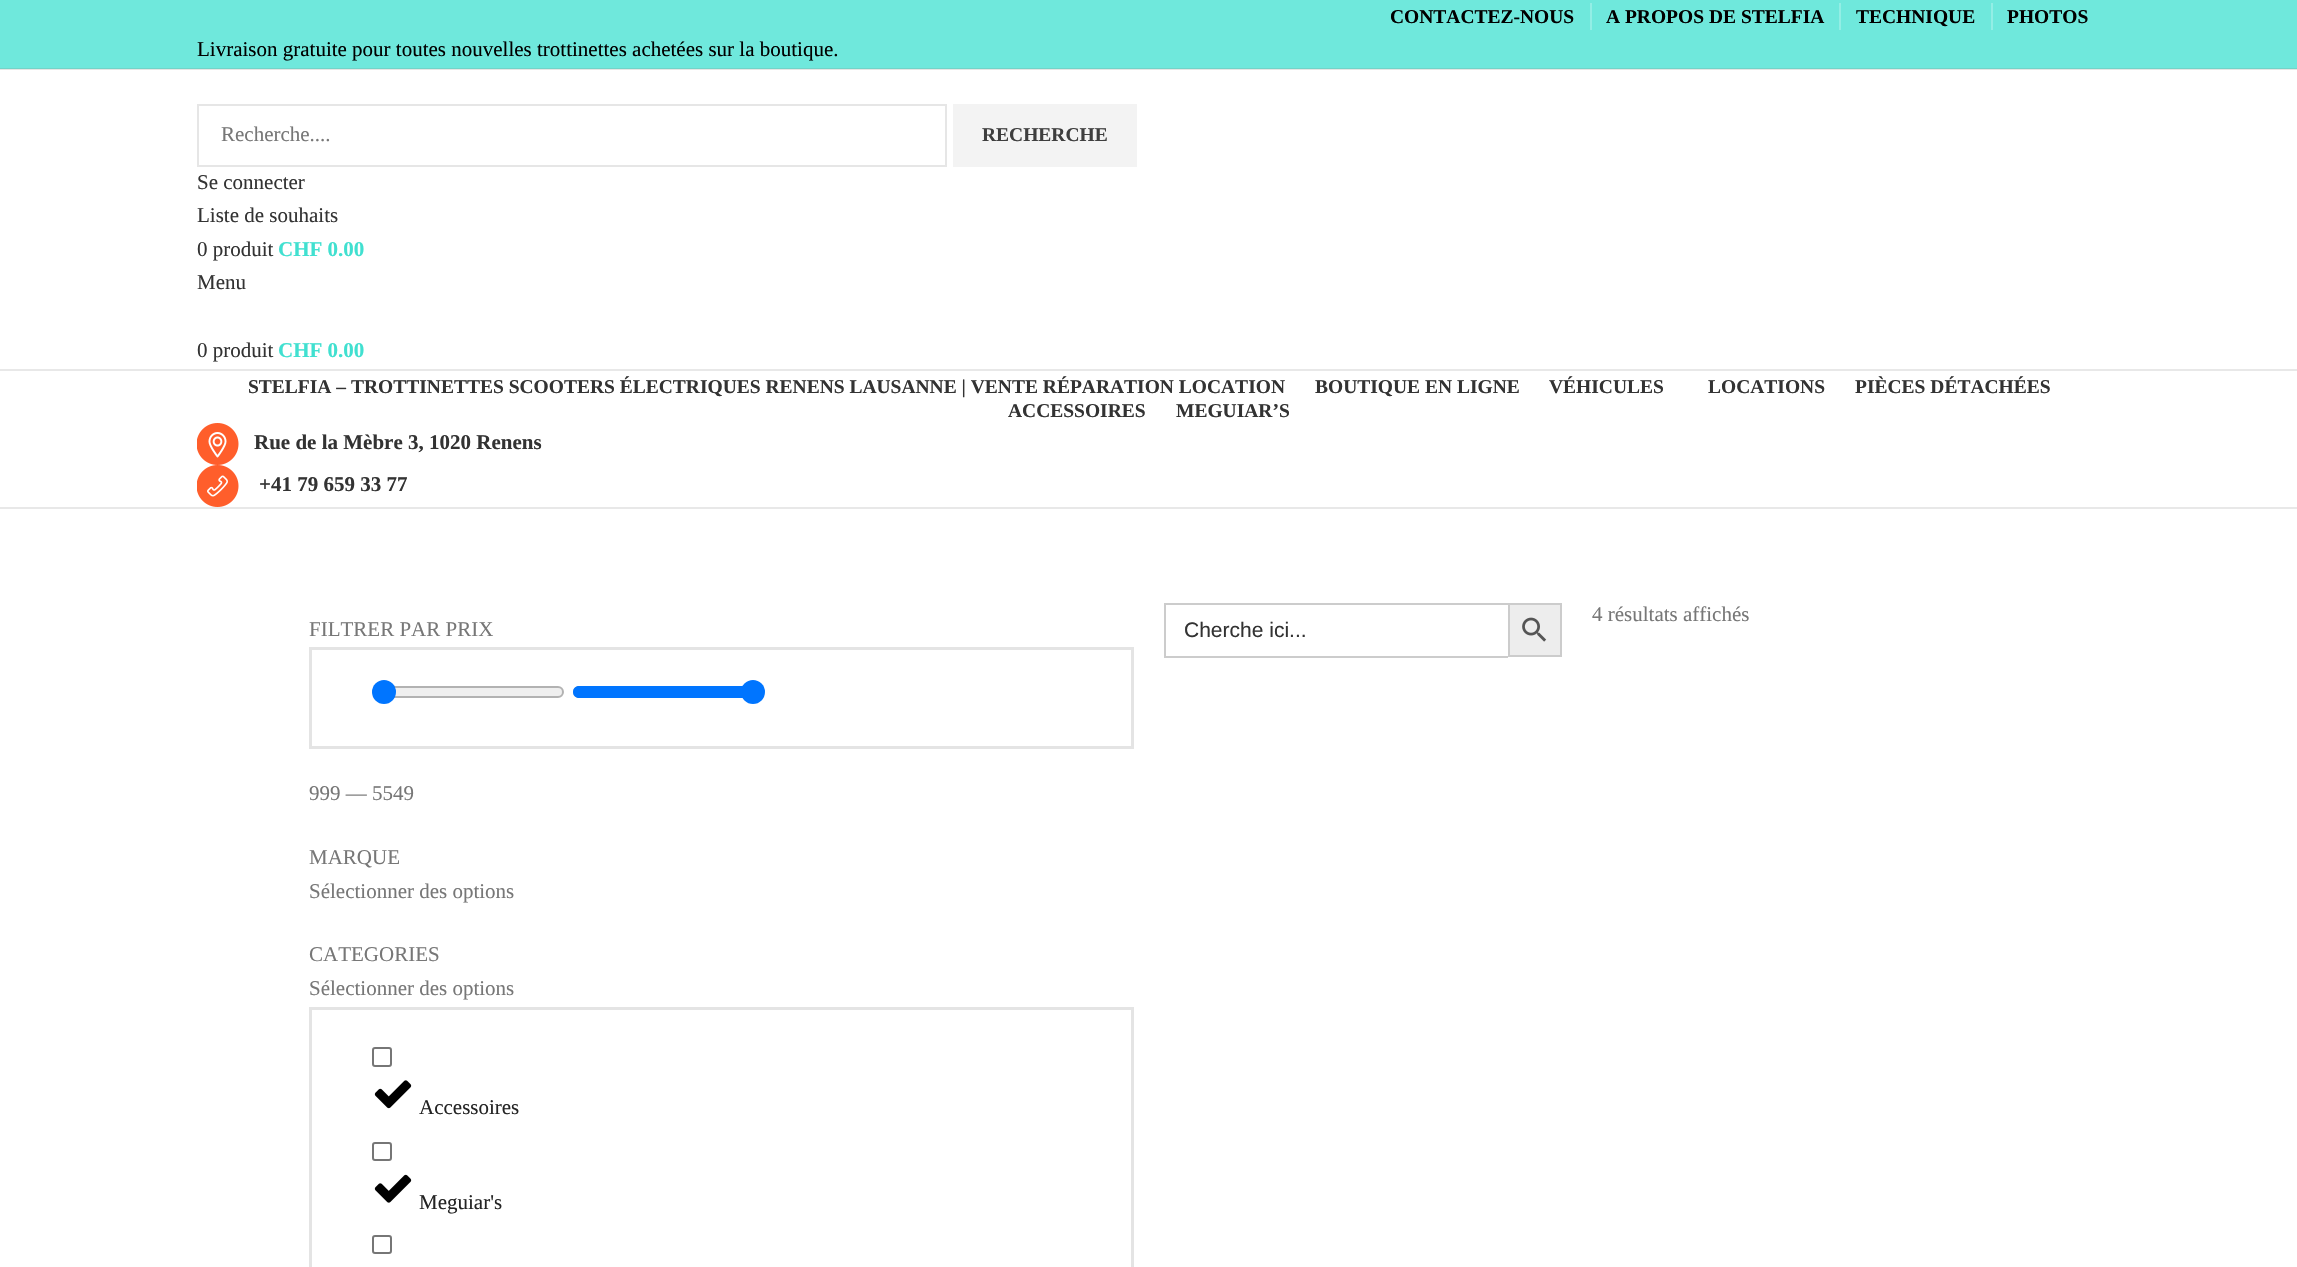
void draw(SkCanvas* canvas) {
    SkPaint paint;
    paint.setAntiAlias(true);
    auto face = [&](const char* family, int weight, float size, bool italic = false) {
        SkFontStyle style(weight, SkFontStyle::kNormal_Width,
            italic ? SkFontStyle::kItalic_Slant : SkFontStyle::kUpright_Slant);
        SkFont result(fontMgr->matchFamilyStyle(family, style), size);
        result.setSubpixel(true);
        return result;
    };
    auto write = [&](const char* s, float x, float y, const SkFont& font, SkColor color) {
        SkPaint ink(SkColor4f::FromColor(color));
        ink.setAntiAlias(true);
        canvas->drawString(s, x, y, font, ink);
    };
    auto block = [&](float x, float y, float w, float h, SkColor color) {
        SkPaint ink(SkColor4f::FromColor(color));
        ink.setAntiAlias(true);
        canvas->drawRect(SkRect::MakeXYWH(x, y, w, h), ink);
    };
    auto paste = [&](const char* path, float x, float y, float w, float h) {
        auto image = SkImages::DeferredFromEncodedData(SkData::MakeFromFileName(path));
        canvas->drawImageRect(image, SkRect::MakeXYWH(x, y, w, h), SkSamplingOptions());
    };
    canvas->clear(SK_ColorWHITE);
    block(0, 69, 2297, 1, SkColorSetRGB(230, 230, 228));
    block(0, 0, 2297, 68, SkColorSetRGB(111, 232, 220));
    block(0, 68, 2297, 1, SkColorSetRGB(115, 211, 200));
    auto kFont1 = face("Liberation Serif", 700, 19.5f);
    write("CONTACTEZ-NOUS", 1390, 23, kFont1, SK_ColorBLACK);
    block(1590, 3, 2, 27, SkColorSetRGB(147, 238, 229));
    write("A PROPOS DE STELFIA", 1606, 23, kFont1, SK_ColorBLACK);
    block(1839, 3, 2, 27, SkColorSetRGB(147, 238, 229));
    write("TECHNIQUE", 1856, 23, kFont1, SK_ColorBLACK);
    block(1991, 3, 2, 27, SkColorSetRGB(147, 238, 229));
    write("PHOTOS", 2007, 23, kFont1, SK_ColorBLACK);
    auto kFont2 = face("Liberation Serif", 400, 21);
    write("Livraison gratuite pour toutes nouvelles trottinettes achetées sur la boutique.", 197, 56, kFont2, SK_ColorBLACK);
    block(0, 369, 2297, 2, SkColorSetRGB(232, 232, 232));
    paint.setStyle(SkPaint::kStroke_Style);
    paint.setStrokeWidth(2);
    paint.setColor(SkColorSetRGB(230, 230, 230));
    canvas->drawRect(SkRect::MakeXYWH(198, 105, 748, 61), paint);
    write("Recherche....", 221, 141, kFont2, SkColorSetRGB(119, 119, 119));
    block(953, 104, 184, 63, SkColorSetRGB(243, 243, 243));
    write("RECHERCHE", 982, 141, kFont1, SkColorSetRGB(62, 62, 62));
    write("Se connecter", 197, 189, kFont2, SkColorSetRGB(51, 51, 51));
    write("Liste de souhaits", 197, 222, kFont2, SkColorSetRGB(51, 51, 51));
    write("0 produit", 197, 256, kFont2, SkColorSetRGB(51, 51, 51));
    auto kFont3 = face("Liberation Serif", 700, 21);
    write("CHF 0.00", 278, 256, kFont3, SkColorSetRGB(64, 224, 208));
    write("Menu", 197, 289, kFont2, SkColorSetRGB(51, 51, 51));
    write("0 produit", 197, 357, kFont2, SkColorSetRGB(51, 51, 51));
    write("CHF 0.00", 278, 357, kFont3, SkColorSetRGB(64, 224, 208));
    block(0, 507, 2297, 2, SkColorSetRGB(232, 232, 232));
    write("STELFIA – TROTTINETTES SCOOTERS ÉLECTRIQUES RENENS LAUSANNE | VENTE RÉPARATION LOCATION", 248, 393, kFont1, SkColorSetRGB(51, 51, 51));
    write("BOUTIQUE EN LIGNE", 1315, 393, kFont1, SkColorSetRGB(51, 51, 51));
    write("VÉHICULES", 1549, 393, kFont1, SkColorSetRGB(51, 51, 51));
    write("LOCATIONS", 1708, 393, kFont1, SkColorSetRGB(51, 51, 51));
    write("PIÈCES DÉTACHÉES", 1855, 393, kFont1, SkColorSetRGB(51, 51, 51));
    write("ACCESSOIRES", 1008, 417, kFont1, SkColorSetRGB(51, 51, 51));
    write("MEGUIAR’S", 1176, 417, kFont1, SkColorSetRGB(51, 51, 51));
    paste("pic1.png", 197, 423, 42, 42);
    write("Rue de la Mèbre 3, 1020 Renens", 254, 449, kFont3, SkColorSetRGB(51, 51, 51));
    paste("pic2.png", 197, 465, 42, 42);
    write("+41 79 659 33 77", 259, 491, kFont3, SkColorSetRGB(51, 51, 51));
    write("FILTRER PAR PRIX", 309, 636, kFont2, SkColorSetRGB(119, 119, 119));
    paint.setStrokeWidth(3);
    paint.setColor(SkColorSetRGB(228, 228, 228));
    canvas->drawRect(SkRect::MakeXYWH(310.5f, 648.5f, 822, 99), paint);
    paint.setStyle(SkPaint::kFill_Style);
    paint.setColor(SkColorSetRGB(239, 239, 239));
    canvas->drawRoundRect(SkRect::MakeXYWH(375, 687, 188, 10), 5, 5, paint);
    paint.setStyle(SkPaint::kStroke_Style);
    paint.setStrokeWidth(2);
    paint.setColor(SkColorSetRGB(178, 178, 178));
    canvas->drawRoundRect(SkRect::MakeXYWH(375, 687, 188, 10), 5, 5, paint);
    paint.setStyle(SkPaint::kFill_Style);
    paint.setColor(SkColorSetRGB(0, 117, 255));
    canvas->drawCircle(384, 692, 12, paint);
    paint.setStyle(SkPaint::kStroke_Style);
    paint.setColor(SkColorSetRGB(178, 178, 178));
    canvas->drawRoundRect(SkRect::MakeXYWH(574, 687, 189, 10), 5, 5, paint);
    paint.setStyle(SkPaint::kFill_Style);
    paint.setColor(SkColorSetRGB(0, 117, 255));
    canvas->drawPath(SkPathBuilder().moveTo(579, 686).lineTo(753, 686).lineTo(753, 698).lineTo(579, 698).cubicTo(575.5f, 698, 573, 695.5f, 573, 692).cubicTo(573, 688.5f, 575.5f, 686, 579, 686).close().detach(), paint);
    canvas->drawCircle(753, 692, 12, paint);
    write("999 — 5549", 309, 800, kFont2, SkColorSetRGB(119, 119, 119));
    write("MARQUE", 309, 864, kFont2, SkColorSetRGB(119, 119, 119));
    write("Sélectionner des options", 309, 898, kFont2, SkColorSetRGB(119, 119, 119));
    write("CATEGORIES", 309, 961, kFont2, SkColorSetRGB(119, 119, 119));
    write("Sélectionner des options", 309, 995, kFont2, SkColorSetRGB(119, 119, 119));
    paint.setStyle(SkPaint::kStroke_Style);
    paint.setStrokeWidth(3);
    paint.setColor(SkColorSetRGB(228, 228, 228));
    canvas->drawRect(SkRect::MakeXYWH(310.5f, 1008.5f, 822, 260), paint);
    paint.setStrokeWidth(2);
    paint.setColor(SkColorSetRGB(118, 118, 118));
    canvas->drawRoundRect(SkRect::MakeXYWH(373, 1048, 18, 18), 2, 2, paint);
    paste("pic3.png", 374, 1080, 38, 29);
    write("Accessoires", 419, 1114, kFont2, SkColorSetRGB(36, 36, 36));
    canvas->drawRoundRect(SkRect::MakeXYWH(373, 1143, 18, 17), 2, 2, paint);
    paste("pic4.png", 374, 1174, 38, 29);
    write("Meguiar's", 419, 1209, kFont2, SkColorSetRGB(36, 36, 36));
    canvas->drawRoundRect(SkRect::MakeXYWH(373, 1236, 18, 17), 2, 2, paint);
    write("4 résultats affichés", 1592, 621, kFont2, SkColorSetRGB(119, 119, 119));
    block(1164, 603, 344, 2, SkColorSetRGB(204, 204, 204));
    block(1164, 656, 344, 2, SkColorSetRGB(204, 204, 204));
    block(1164, 603, 2, 54, SkColorSetRGB(204, 204, 204));
    auto kFont4 = face("Liberation Sans", 400, 21);
    write("Cherche ici...", 1184, 637, kFont4, SkColorSetRGB(51, 51, 51));
    paint.setStyle(SkPaint::kFill_Style);
    paint.setColor(SkColorSetRGB(237, 237, 237));
    canvas->drawRect(SkRect::MakeXYWH(1509, 604, 52, 52), paint);
    paint.setStyle(SkPaint::kStroke_Style);
    paint.setColor(SkColorSetRGB(204, 204, 204));
    canvas->drawRect(SkRect::MakeXYWH(1509, 604, 52, 52), paint);
    paste("pic5.png", 1522, 617, 25, 25);
}
